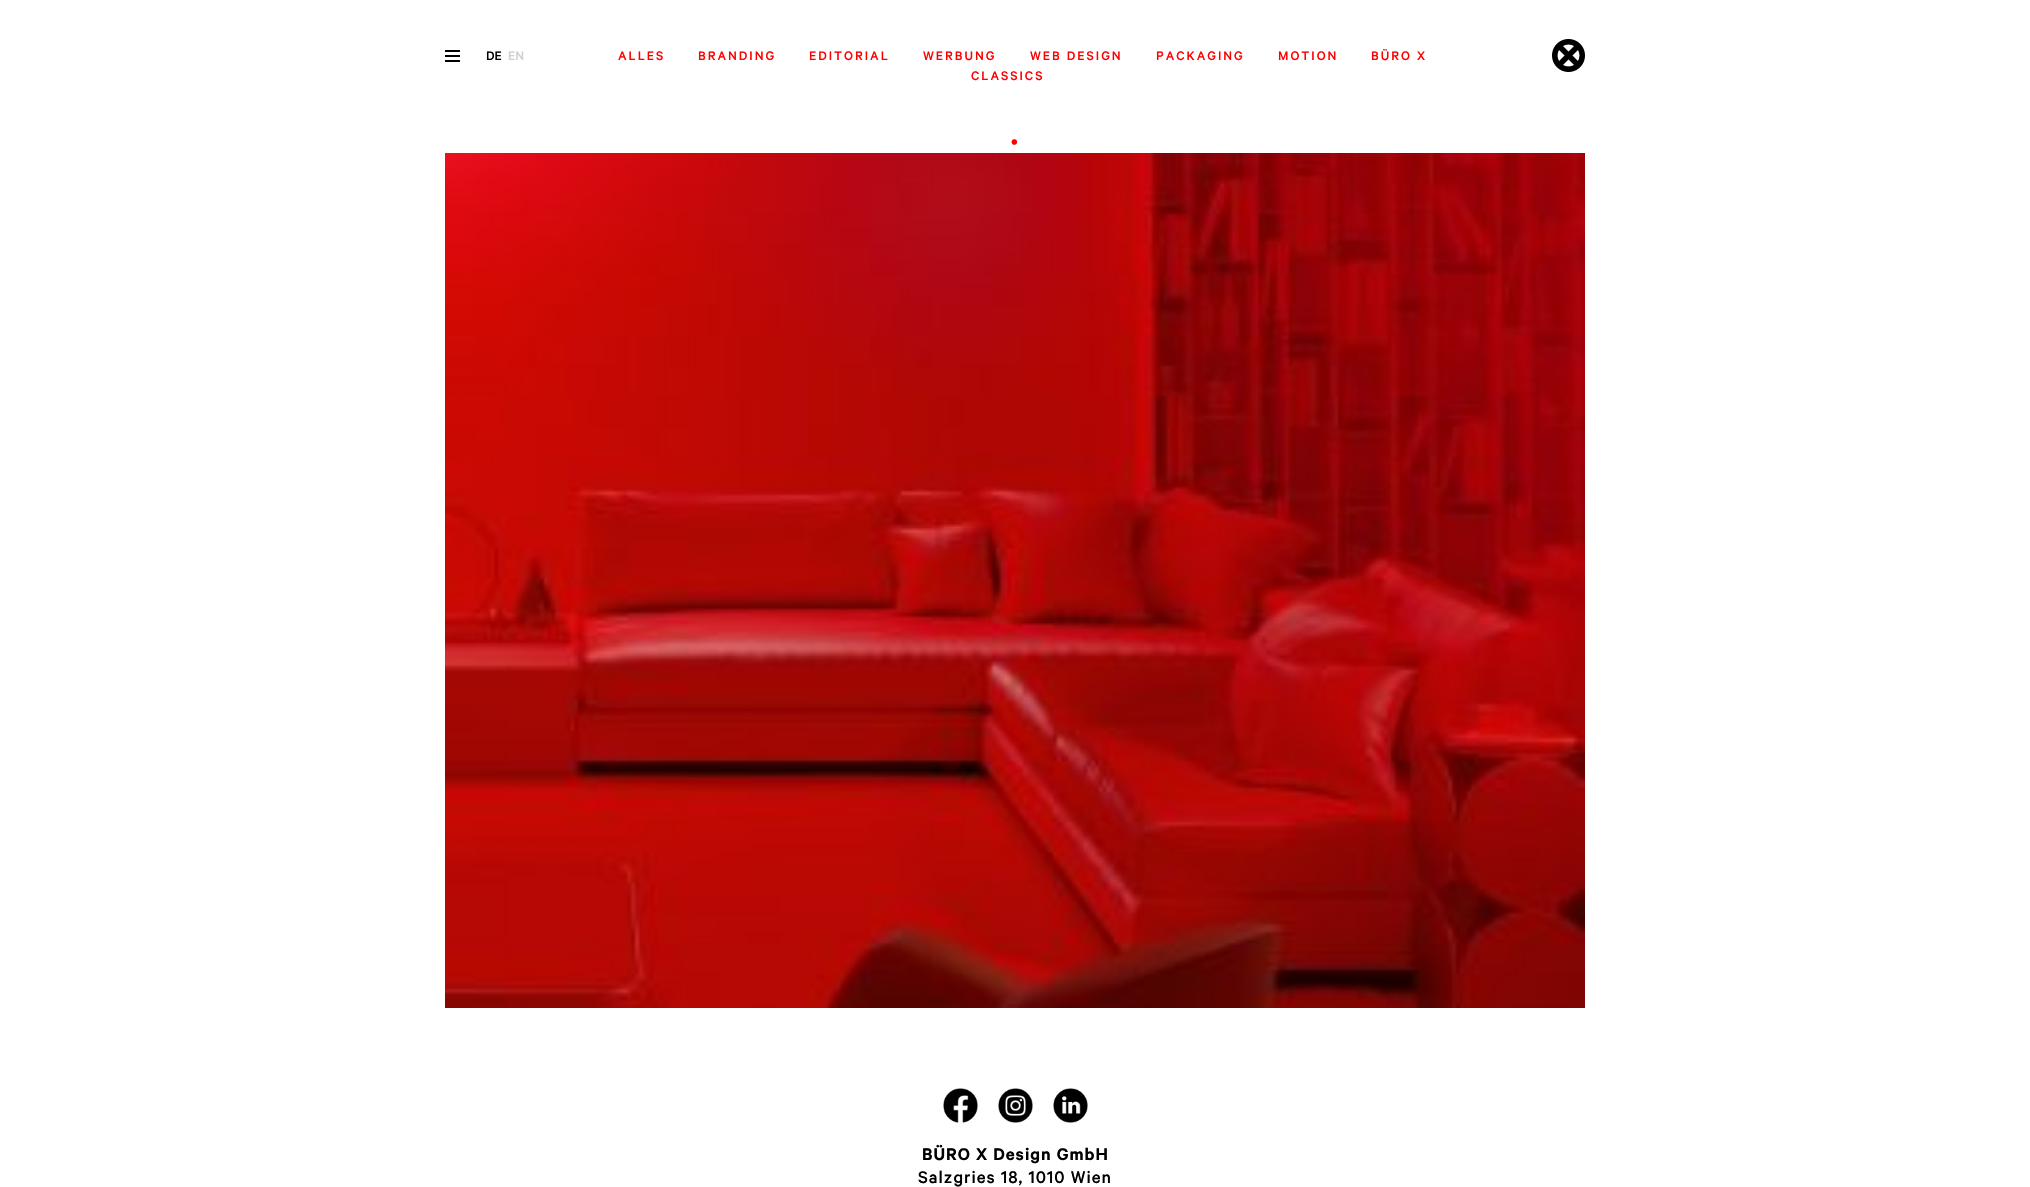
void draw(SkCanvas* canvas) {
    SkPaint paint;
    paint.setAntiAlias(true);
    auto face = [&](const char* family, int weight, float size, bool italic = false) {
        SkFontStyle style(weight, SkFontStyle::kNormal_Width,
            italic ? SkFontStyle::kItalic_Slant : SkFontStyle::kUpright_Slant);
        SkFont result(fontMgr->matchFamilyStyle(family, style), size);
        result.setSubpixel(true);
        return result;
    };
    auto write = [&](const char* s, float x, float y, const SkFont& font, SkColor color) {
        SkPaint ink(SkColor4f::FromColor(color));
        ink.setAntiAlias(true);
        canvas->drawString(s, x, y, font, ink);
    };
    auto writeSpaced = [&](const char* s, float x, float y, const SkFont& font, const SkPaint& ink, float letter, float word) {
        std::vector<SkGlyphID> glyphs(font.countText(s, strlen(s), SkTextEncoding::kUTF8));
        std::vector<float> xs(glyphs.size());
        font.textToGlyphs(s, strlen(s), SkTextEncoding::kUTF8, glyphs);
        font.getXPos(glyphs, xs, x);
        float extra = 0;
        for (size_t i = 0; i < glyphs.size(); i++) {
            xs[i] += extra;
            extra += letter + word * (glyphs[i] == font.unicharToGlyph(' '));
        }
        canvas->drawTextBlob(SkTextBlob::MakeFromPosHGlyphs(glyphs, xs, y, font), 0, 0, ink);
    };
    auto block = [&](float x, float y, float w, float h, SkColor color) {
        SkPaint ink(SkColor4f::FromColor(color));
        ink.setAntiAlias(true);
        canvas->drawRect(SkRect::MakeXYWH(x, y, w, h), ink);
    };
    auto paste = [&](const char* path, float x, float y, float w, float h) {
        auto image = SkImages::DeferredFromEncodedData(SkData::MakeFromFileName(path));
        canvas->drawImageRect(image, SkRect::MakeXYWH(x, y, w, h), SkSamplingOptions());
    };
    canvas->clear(SK_ColorWHITE);
    block(445, 55, 15, 2, SK_ColorBLACK);
    block(445, 50, 15, 2, SK_ColorBLACK);
    block(445, 60, 15, 2, SK_ColorBLACK);
    auto kFont1 = face("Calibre", 500, 14);
    write("DE", 486, 60, kFont1, SK_ColorBLACK);
    write("EN", 508, 60, kFont1, SkColorSetRGB(208, 208, 208));
    paint.setColor(SkColorSetRGB(255, 0, 0));
    writeSpaced("ALLES", 618, 60, kFont1, paint, 2, 0);
    writeSpaced("BRANDING", 698, 60, kFont1, paint, 2, 0);
    writeSpaced("EDITORIAL", 809, 60, kFont1, paint, 2, 0);
    writeSpaced("WERBUNG", 923, 60, kFont1, paint, 2, 0);
    writeSpaced("WEB DESIGN", 1030, 60, kFont1, paint, 2, 0);
    writeSpaced("PACKAGING", 1156, 60, kFont1, paint, 2, 0);
    writeSpaced("MOTION", 1278, 60, kFont1, paint, 2, 0);
    writeSpaced("BÜRO X", 1371, 60, kFont1, paint, 2, 0);
    writeSpaced("CLASSICS", 971, 80, kFont1, paint, 2, 0);
    paste("pic1.png", 1552, 39, 33, 33);
    auto kFont2 = face("Calibre", 500, 19);
    writeSpaced("•", 1011, 147, kFont2, paint, 1, 0);
    paste("pic2.png", 445, 153, 1140, 855);
    paste("pic3.png", 943, 1088, 35, 35);
    paste("pic4.png", 998, 1088, 35, 35);
    paste("pic5.png", 1053, 1088, 35, 35);
    auto kFont3 = face("Calibre", 600, 19);
    paint.setColor(SK_ColorBLACK);
    writeSpaced("BÜRO X Design GmbH", 922, 1160, kFont3, paint, 1, 0);
    writeSpaced("Salzgries 18, 1010 Wien", 918, 1183, kFont2, paint, 1, 0);
}
